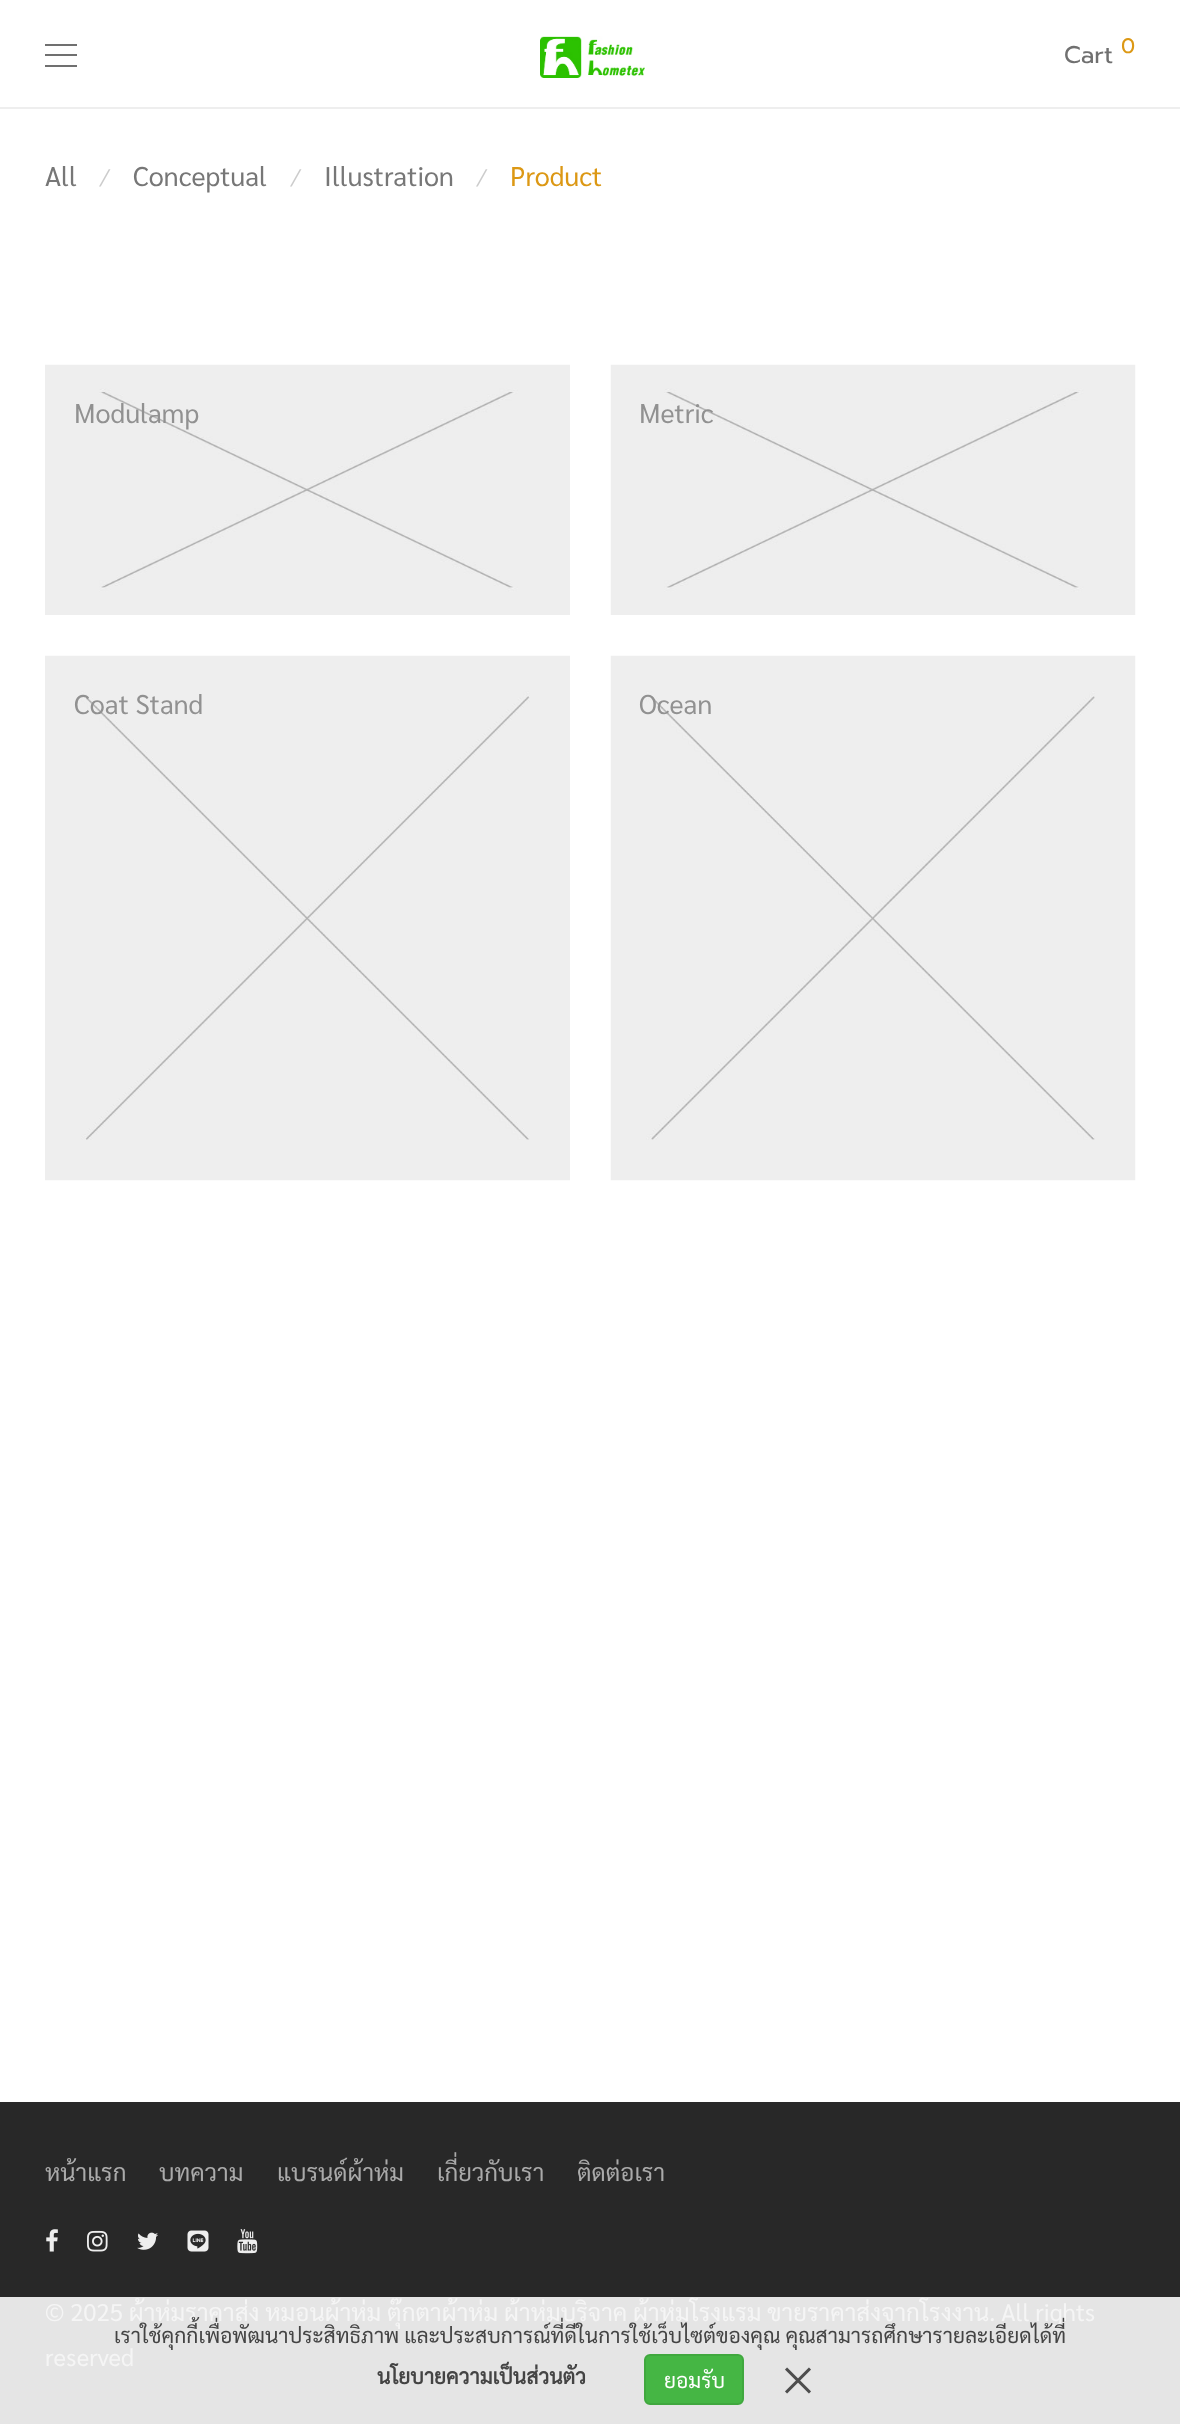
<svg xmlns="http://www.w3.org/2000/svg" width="1180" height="2424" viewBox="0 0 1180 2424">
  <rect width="100%" height="100%" fill="#fff"/>
  <path d="M0 107h1180v2H0z" fill="#eee"/>
  <path d="M45 44h32v2H45z" fill="#707070"/>
  <path d="M45 54h32v2H45z" fill="#707070"/>
  <path d="M45 65h32v2H45z" fill="#707070"/>
  <image x="540" y="36" width="105" height="42" href="img/1.png"/>
  <image x="45" y="364" width="525" height="251" href="img/2.png"/>
  <image x="610" y="364" width="526" height="251" href="img/3.png"/>
  <image x="45" y="655" width="525" height="526" href="img/4.png"/>
  <image x="610" y="655" width="526" height="526" href="img/5.png"/>
  <path d="M0 2102h1180v195H0z" fill="#282828"/>
  <path d="M0 2297h1180v127H0z" fill="#e5e5e5"/>
  <image x="46" y="2229" width="12" height="23" href="img/6.png"/>
  <image x="87" y="2230" width="21" height="22" href="img/7.png"/>
  <image x="137" y="2232" width="21" height="18" href="img/8.png"/>
  <image x="187" y="2230" width="22" height="22" href="img/9.png"/>
  <image x="237" y="2229" width="21" height="25" href="img/10.png"/>
  <rect x="645" y="2355" width="98" height="49" rx="5" fill="#45b644" stroke="#40a83e" stroke-width="2"/>
  <image x="785" y="2367" width="26" height="27" href="img/11.png"/>
  <text x="1064" y="63" font-family="Prompt" font-size="24" fill="#707070">Cart</text>
  <text x="1121" y="53" font-family="Prompt" font-size="21" fill="#dc9814">0</text>
  <text x="45" y="186" font-family="Sarabun" font-size="27" fill="#777">All</text>
  <text x="102" y="186" font-family="Sarabun" font-size="24" fill="#ccc">⁄</text>
  <text x="133" y="186" font-family="Sarabun" font-size="27" fill="#777">Conceptual</text>
  <text x="293" y="186" font-family="Sarabun" font-size="24" fill="#ccc">⁄</text>
  <text x="324" y="186" font-family="Sarabun" font-size="27" fill="#777">Illustration</text>
  <text x="479" y="186" font-family="Sarabun" font-size="24" fill="#ccc">⁄</text>
  <text x="510" y="186" font-family="Sarabun" font-size="27" fill="#dc9814">Product</text>
  <g font-family="Sarabun" font-size="27" fill="#919191">
    <text x="74" y="423">Modulamp</text>
    <text x="639" y="423">Metric</text>
    <text x="74" y="714">Coat Stand</text>
    <text x="639" y="714">Ocean</text>
  </g>
  <g font-family="Sarabun" font-size="24" fill="#aaa">
    <text x="45" y="2181">หน้าแรก</text>
    <text x="159" y="2181">บทความ</text>
    <text x="277" y="2181">แบรนด์ผ้าห่ม</text>
    <text x="437" y="2181">เกี่ยวกับเรา</text>
    <text x="577" y="2181">ติดต่อเรา</text>
  </g>
  <g font-family="Sarabun" font-size="24" fill="#f5f5f5">
    <text x="45" y="2321">© 2025 ผ้าห่มราคาส่ง หมอนผ้าห่ม ตุ๊กตาผ้าห่ม ผ้าห่มบริจาค ผ้าห่มโรงแรม ขายราคาส่งจากโรงงาน. All rights</text>
    <text x="45" y="2366">reserved</text>
  </g>
  <text x="114" y="2343" font-family="Sarabun" font-size="21" fill="#444">เราใช้คุกกี้เพื่อพัฒนาประสิทธิภาพ และประสบการณ์ที่ดีในการใช้เว็บไซต์ของคุณ คุณสามารถศึกษารายละเอียดได้ที่</text>
  <text x="377" y="2384" font-family="Sarabun" font-size="21" font-weight="bold" fill="#444">นโยบายความเป็นส่วนตัว</text>
  <text x="664" y="2388" font-family="Sarabun" font-size="21" fill="#fff">ยอมรับ</text>
</svg>
